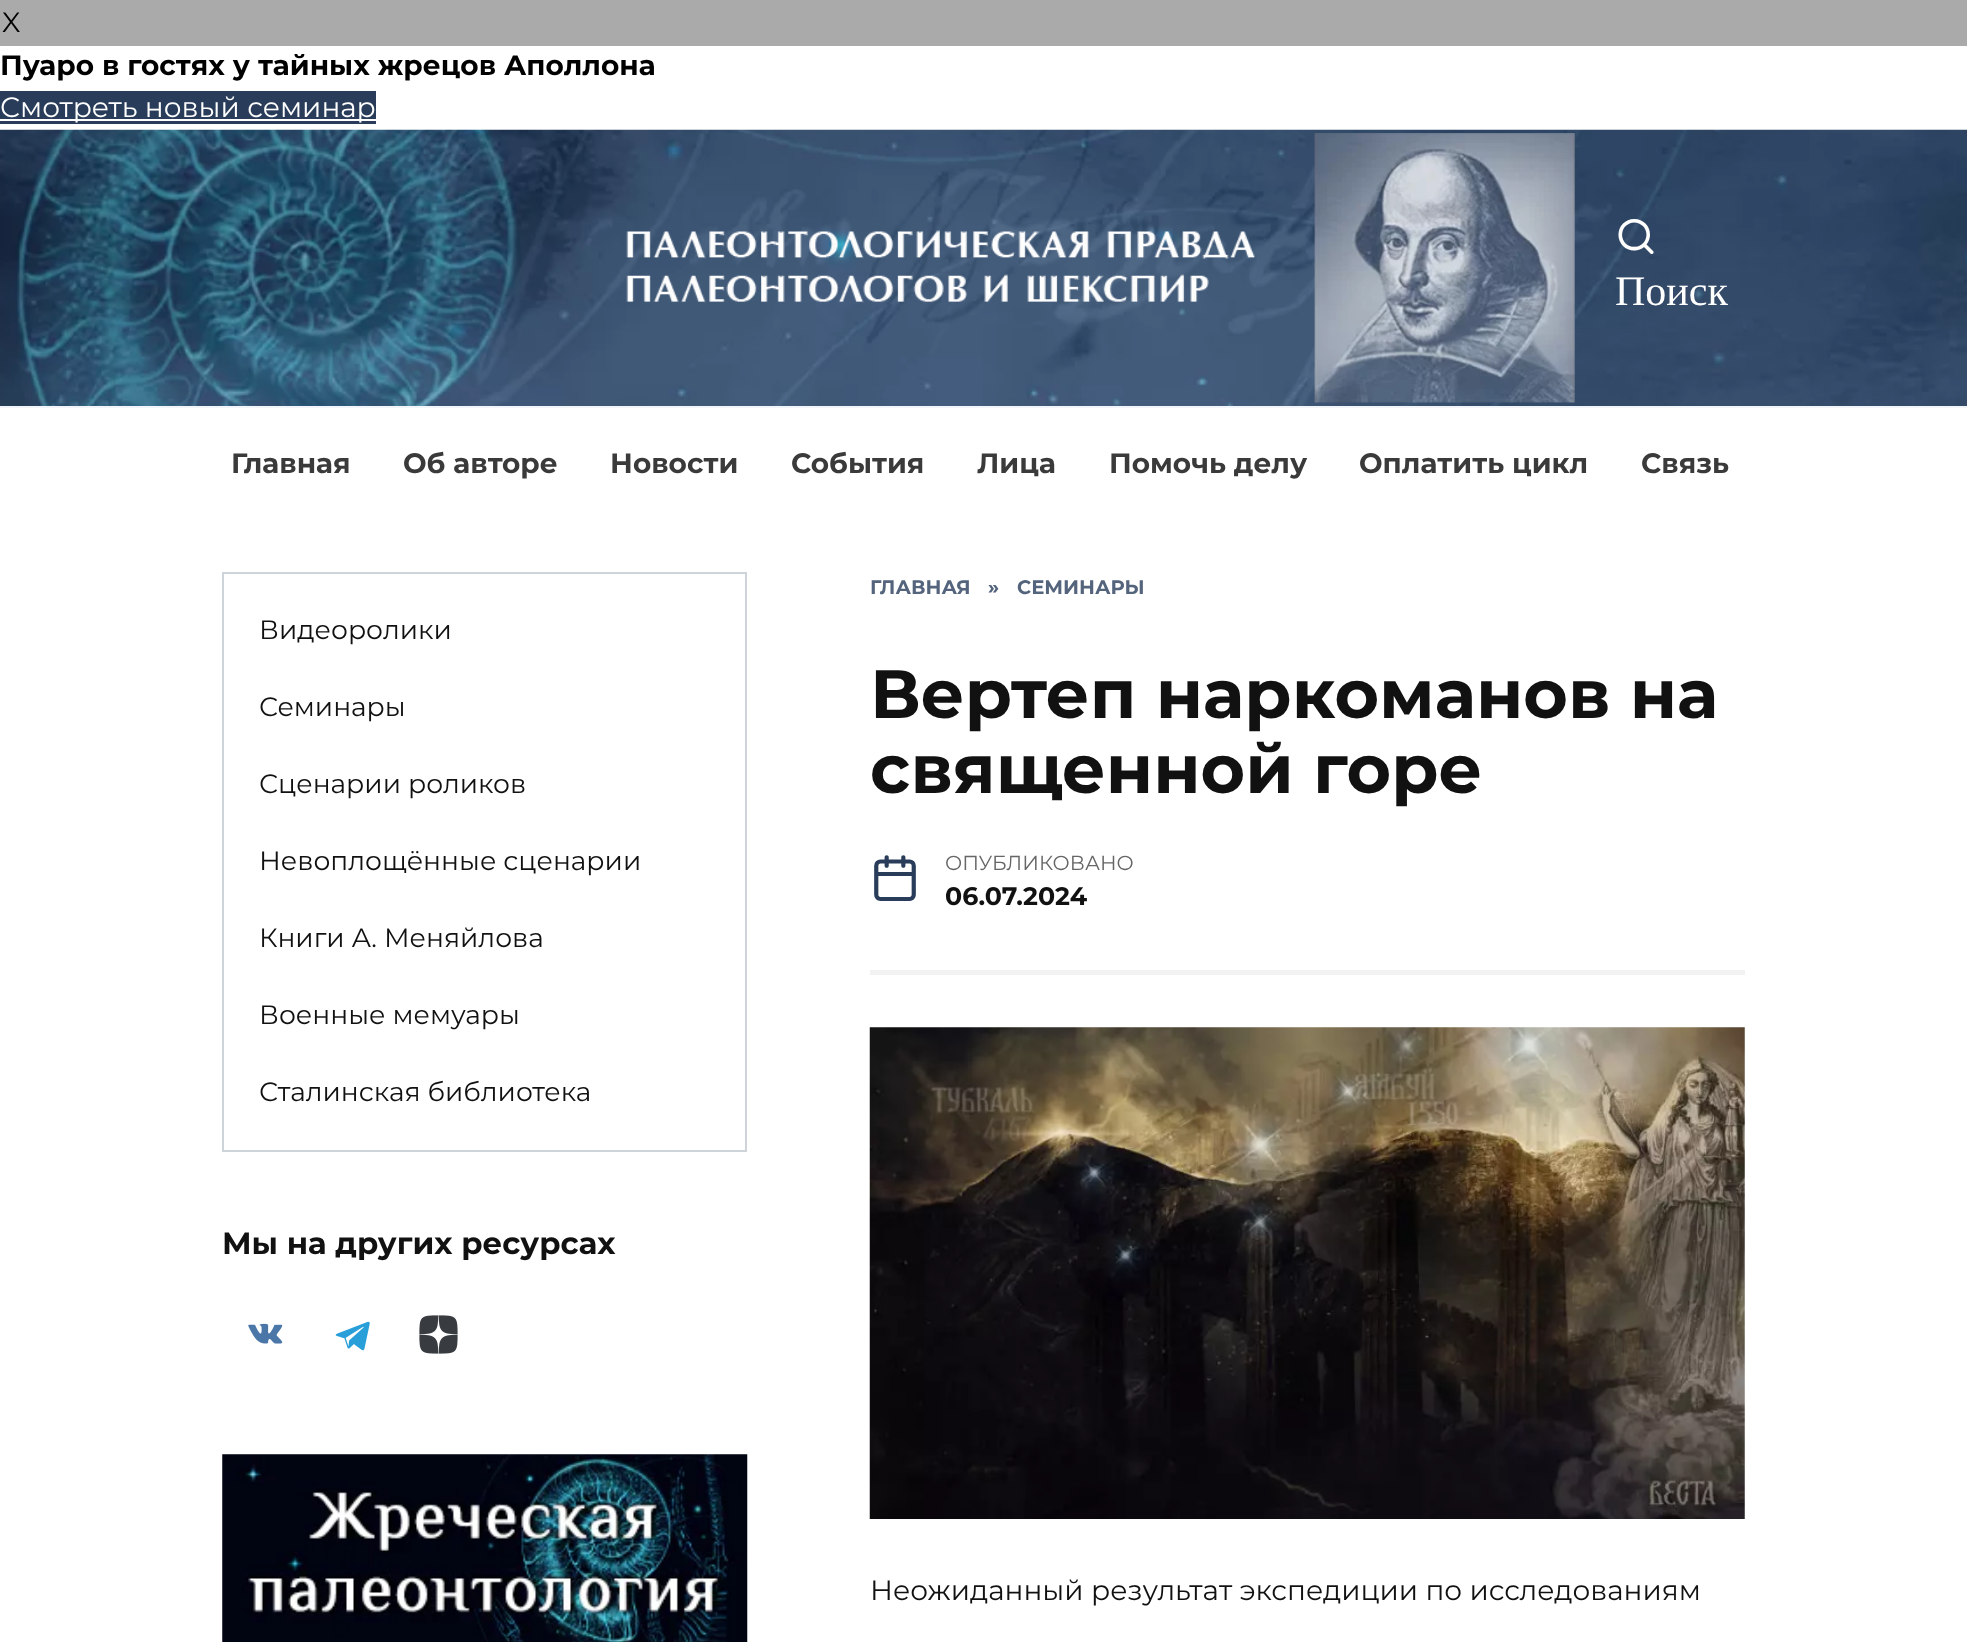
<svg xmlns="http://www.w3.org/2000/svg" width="1967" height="1642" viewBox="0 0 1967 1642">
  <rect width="100%" height="100%" fill="#fff"/>
  <path d="M0 0h1967v46H0z" fill="#aaa"/>
  <path d="M0 91h376v33H0z" fill="#293d5b"/>
  <path d="M0 119h376v2H0z" fill="#fff"/>
  <image x="0" y="129" width="1967" height="277" href="img/1.png"/>
  <path d="M0 406h1967v2H0z" fill="#f2f5f9"/>
  <image x="626" y="133" width="949" height="270" href="img/2.png"/>
  <path d="M223 573h523v578H223z" fill="none" stroke="#ced4da" stroke-width="2"/>
  <image x="248" y="1323" width="35" height="21" href="img/3.png"/>
  <image x="335" y="1321" width="35" height="30" href="img/4.png"/>
  <image x="419" y="1315" width="39" height="39" href="img/5.png"/>
  <image x="222" y="1454" width="526" height="188" href="img/6.png"/>
  <path d="M870 970h875v5H870z" fill="#f2f2f2"/>
  <image x="869" y="1027" width="876" height="492" href="img/7.png"/>
  <text x="2" y="32" font-family="Montserrat" font-size="28" fill="#000">X</text>
  <text x="0" y="75" font-family="Montserrat" font-size="28" font-weight="bold" fill="#000">Пуаро в гостях у тайных жрецов Аполлона</text>
  <text x="0" y="117" font-family="Montserrat" font-size="28" fill="#fff">Смотреть новый семинар</text>
  <text x="1615" y="254" font-family="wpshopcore" font-size="42" fill="#fff">🔍</text>
  <text x="1615" y="305" font-family="Liberation Serif" font-size="42" fill="#fff">Поиск</text>
  <g font-family="Montserrat" font-size="28" font-weight="bold" fill="#3a3a3a">
    <text x="231" y="473">Главная</text>
    <text x="403" y="473">Об авторе</text>
    <text x="610" y="473">Новости</text>
    <text x="791" y="473">События</text>
    <text x="977" y="473">Лица</text>
    <text x="1109" y="473">Помочь делу</text>
    <text x="1359" y="473">Оплатить цикл</text>
    <text x="1641" y="473">Связь</text>
  </g>
  <g font-family="Montserrat" font-size="26.6" fill="#111">
    <text x="259" y="639">Видеоролики</text>
    <text x="259" y="716">Семинары</text>
    <text x="259" y="793">Сценарии роликов</text>
    <text x="259" y="870">Невоплощённые сценарии</text>
    <text x="259" y="947">Книги А. Меняйлова</text>
    <text x="259" y="1024">Военные мемуары</text>
    <text x="259" y="1101">Сталинская библиотека</text>
  </g>
  <text x="222" y="1254" font-family="Montserrat" font-size="30.75" font-weight="bold" fill="#111">Мы на других ресурсах</text>
  <g font-family="Montserrat" font-size="19.5" font-weight="bold" fill="#54647c">
    <text x="870" y="594">ГЛАВНАЯ</text>
    <text x="988" y="594">»</text>
    <text x="1017" y="594">СЕМИНАРЫ</text>
  </g>
  <g font-family="Montserrat" font-size="68.25" font-weight="bold" fill="#111">
    <text x="870" y="718">Вертеп наркоманов на</text>
    <text x="870" y="793">священной горе</text>
  </g>
  <text x="870" y="899" font-family="wpshopcore" font-size="50" fill="#293d5b">📅</text>
  <text x="945" y="870" font-family="Montserrat" font-size="20.25" fill="#666">ОПУБЛИКОВАНО</text>
  <text x="945" y="905" font-family="Montserrat" font-size="25.25" font-weight="bold" fill="#111">06.07.2024</text>
  <text x="870" y="1600" font-family="Montserrat" font-size="28" fill="#111">Неожиданный результат экспедиции по исследованиям</text>
</svg>
